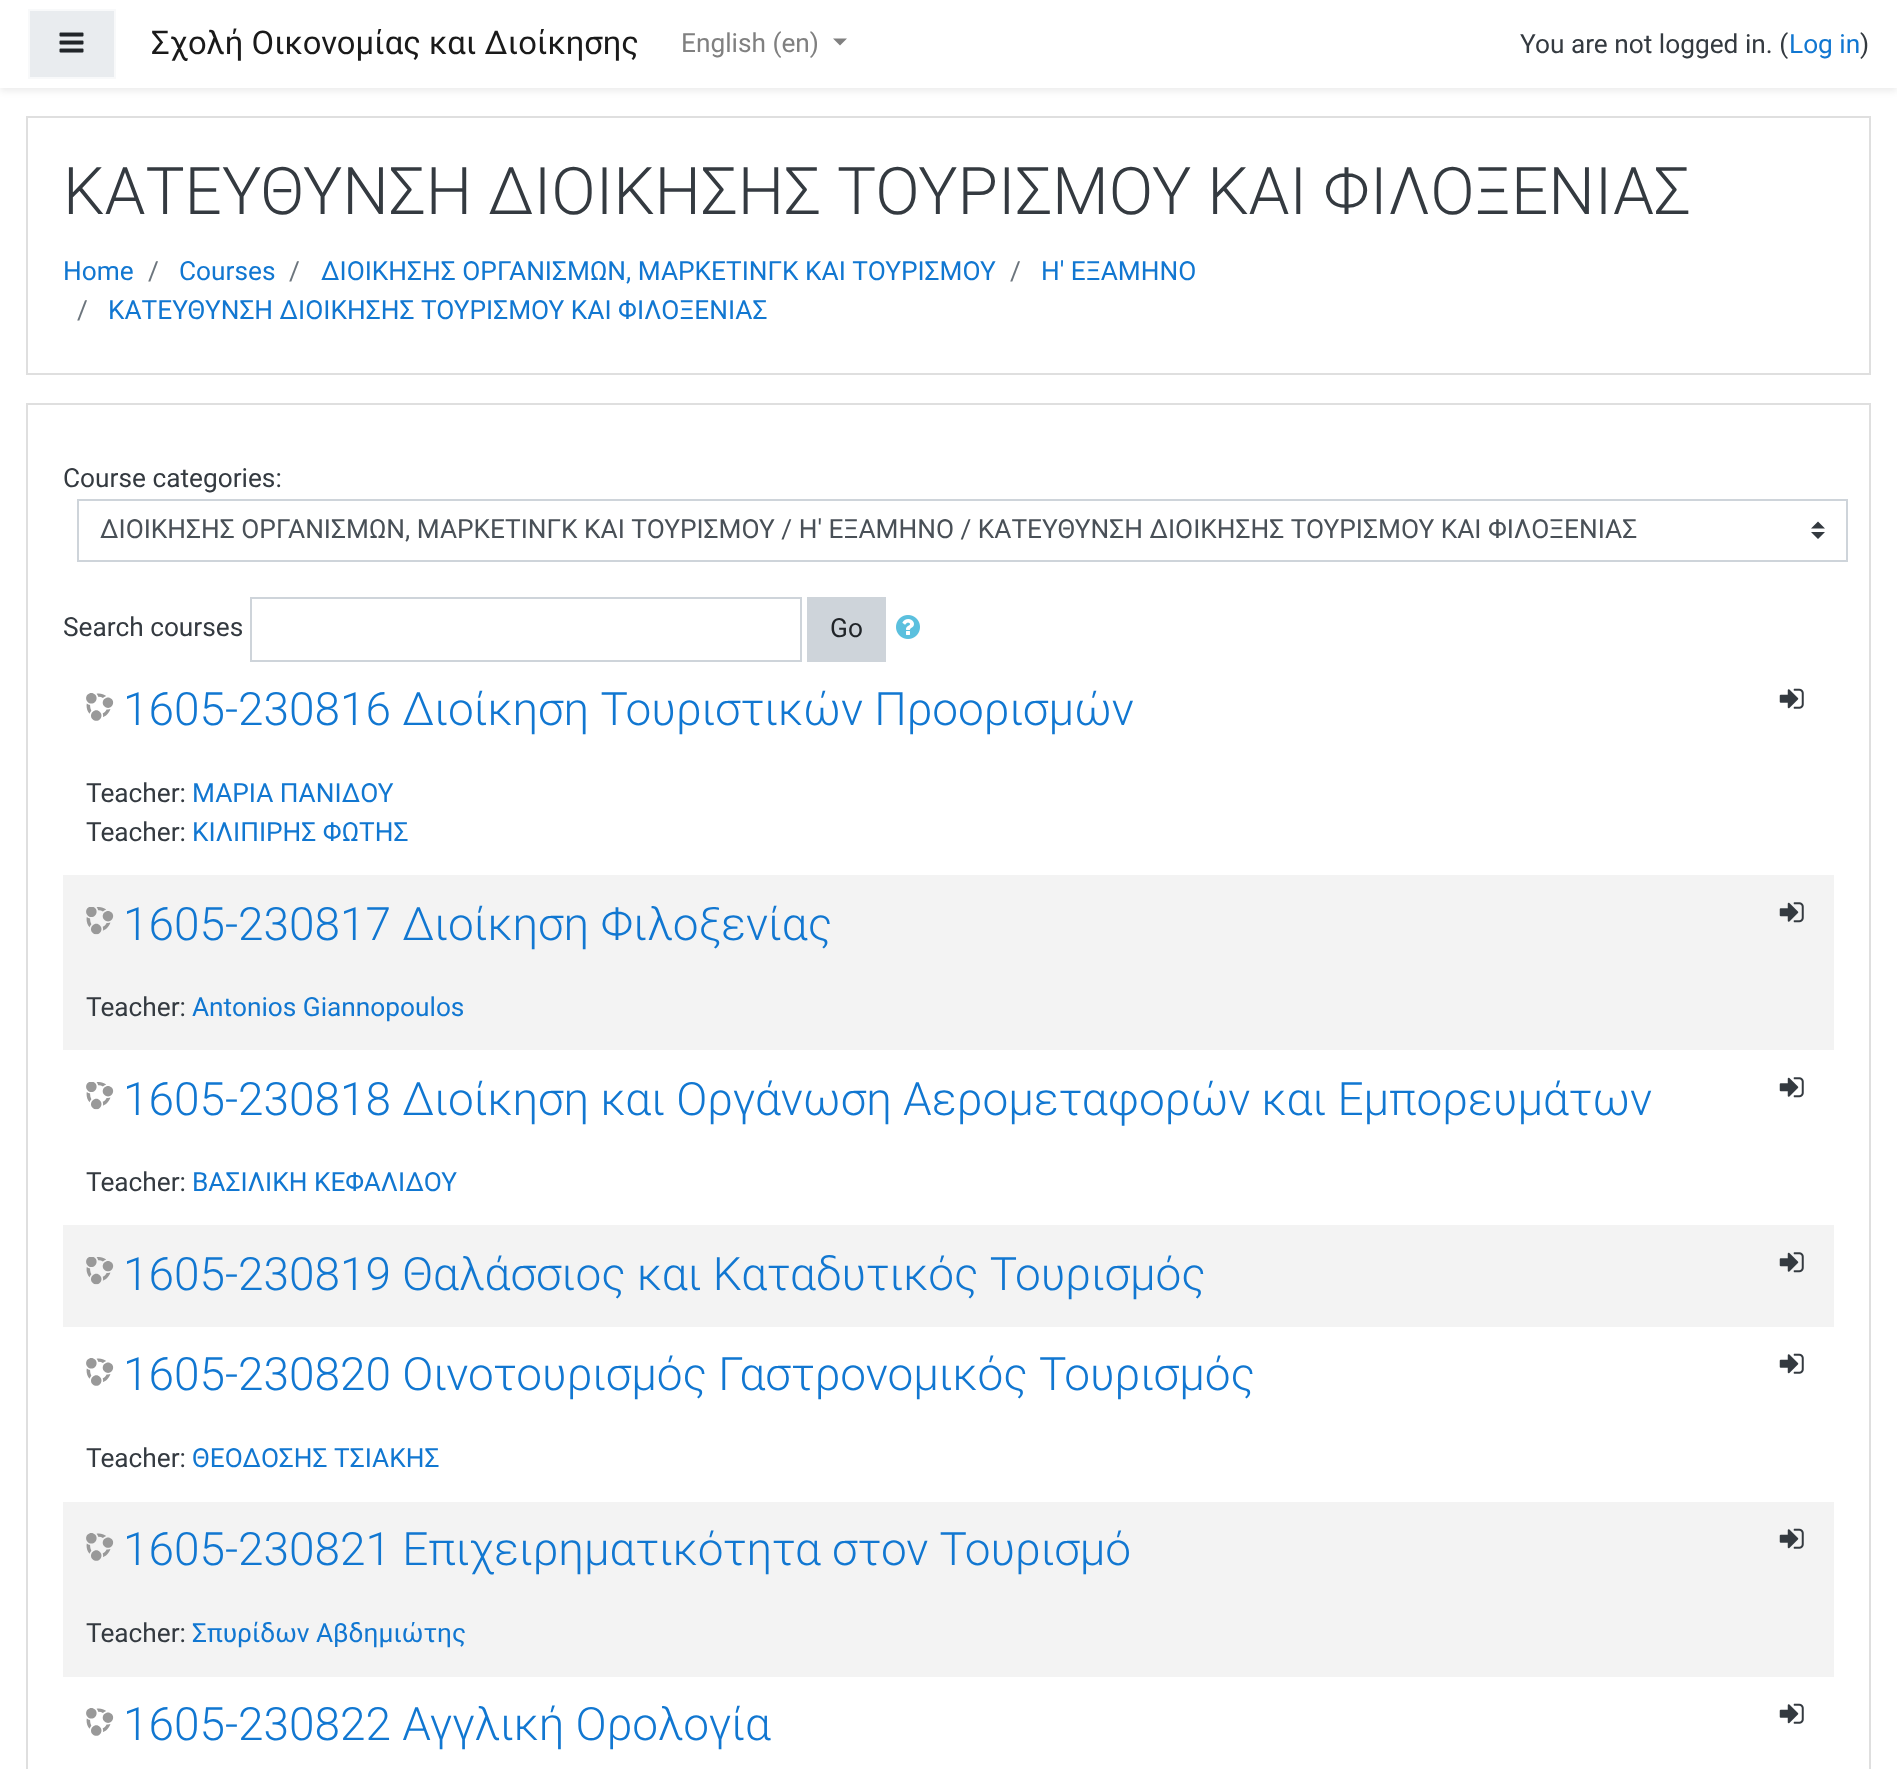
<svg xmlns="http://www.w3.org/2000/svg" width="1897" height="1769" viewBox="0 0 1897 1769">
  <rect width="100%" height="100%" fill="#fff"/>
  <path d="M0 4h1897v87H0z" fill="#00000014" filter="blur(3.5px)"/>
  <path d="M0 0h1897v88H0z" fill="#fff"/>
  <path d="M29 10h86v68H29z" fill="#e9ecef" stroke="#f8f9fa" stroke-width="2"/>
  <image x="59" y="32" width="25" height="21" href="img/1.png"/>
  <path d="M833 38.5H847L840 45.5Z" fill="#808080"/>
  <path d="M27 117h1843v257H27z" fill="none" stroke="#dfdfdf" stroke-width="2"/>
  <path d="M27 404h1843v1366H27z" fill="none" stroke="#dfdfdf" stroke-width="2"/>
  <path d="M1818 521.5L1811 528.5H1825ZM1818 539L1811 532H1825Z" fill="#343a40"/>
  <path d="M78 500h1769v61H78z" fill="none" stroke="#ced4da" stroke-width="2"/>
  <path d="M251 598h550v63H251z" fill="none" stroke="#ced4da" stroke-width="2"/>
  <path d="M807 597h79v65H807z" fill="#ced4da"/>
  <image x="896" y="615" width="24" height="24" href="img/2.png"/>
  <image x="86" y="693" width="28" height="28" href="img/3.png"/>
  <image x="1779" y="688" width="25" height="21" href="img/4.png"/>
  <path d="M63 875h1771v175H63z" fill="#f3f3f3"/>
  <image x="86" y="907" width="28" height="28" href="img/5.png"/>
  <image x="1779" y="902" width="25" height="21" href="img/6.png"/>
  <image x="86" y="1082" width="28" height="28" href="img/7.png"/>
  <image x="1779" y="1077" width="25" height="21" href="img/8.png"/>
  <path d="M63 1225h1771v102H63z" fill="#f3f3f3"/>
  <image x="86" y="1257" width="28" height="28" href="img/9.png"/>
  <image x="1779" y="1252" width="25" height="21" href="img/6.png"/>
  <image x="86" y="1358" width="28" height="28" href="img/3.png"/>
  <image x="1779" y="1353" width="25" height="21" href="img/4.png"/>
  <path d="M63 1502h1771v175H63z" fill="#f3f3f3"/>
  <image x="86" y="1533" width="28" height="28" href="img/10.png"/>
  <image x="1779" y="1528" width="25" height="21" href="img/11.png"/>
  <image x="86" y="1708" width="28" height="28" href="img/3.png"/>
  <image x="1779" y="1703" width="25" height="21" href="img/4.png"/>
  <text x="151" y="54" font-family="Roboto" font-size="32.75" fill="#1a1a1a">Σχολή Οικονομίας και Διοίκησης</text>
  <text x="681" y="52" font-family="Roboto" font-size="26.25" fill="#808080">English (en)</text>
  <text x="1520" y="53" font-family="Roboto" font-size="26.25" fill="#343a40">You are not logged in. (</text>
  <text x="1789" y="53" font-family="Roboto" font-size="26.25" fill="#1177d1">Log in</text>
  <text x="1860" y="53" font-family="Roboto" font-size="26.25" fill="#343a40">)</text>
  <text x="63" y="214" font-family="Roboto" font-size="65.6" font-weight="300" fill="#343a40">ΚΑΤΕΥΘΥΝΣΗ ΔΙΟΙΚΗΣΗΣ ΤΟΥΡΙΣΜΟΥ ΚΑΙ ΦΙΛΟΞΕΝΙΑΣ</text>
  <text x="63" y="280" font-family="Roboto" font-size="26.25" fill="#1177d1">Home</text>
  <text x="148" y="280" font-family="Roboto" font-size="26.25" fill="#6c757d">/</text>
  <text x="179" y="280" font-family="Roboto" font-size="26.25" fill="#1177d1">Courses</text>
  <text x="289" y="280" font-family="Roboto" font-size="26.25" fill="#6c757d">/</text>
  <text x="321" y="280" font-family="Roboto" font-size="26.25" fill="#1177d1">ΔΙΟΙΚΗΣΗΣ ΟΡΓΑΝΙΣΜΩΝ, ΜΑΡΚΕΤΙΝΓΚ ΚΑΙ ΤΟΥΡΙΣΜΟΥ</text>
  <text x="1010" y="280" font-family="Roboto" font-size="26.25" fill="#6c757d">/</text>
  <text x="1041" y="280" font-family="Roboto" font-size="26.25" fill="#1177d1">Η' ΕΞΑΜΗΝΟ</text>
  <text x="77" y="319" font-family="Roboto" font-size="26.25" fill="#6c757d">/</text>
  <text x="108" y="319" font-family="Roboto" font-size="26.25" fill="#1177d1">ΚΑΤΕΥΘΥΝΣΗ ΔΙΟΙΚΗΣΗΣ ΤΟΥΡΙΣΜΟΥ ΚΑΙ ΦΙΛΟΞΕΝΙΑΣ</text>
  <text x="63" y="487" font-family="Roboto" font-size="26.25" fill="#343a40">Course categories:</text>
  <text x="100" y="538" font-family="Roboto" font-size="26.25" fill="#495057">ΔΙΟΙΚΗΣΗΣ ΟΡΓΑΝΙΣΜΩΝ, ΜΑΡΚΕΤΙΝΓΚ ΚΑΙ ΤΟΥΡΙΣΜΟΥ / Η' ΕΞΑΜΗΝΟ / ΚΑΤΕΥΘΥΝΣΗ ΔΙΟΙΚΗΣΗΣ ΤΟΥΡΙΣΜΟΥ ΚΑΙ ΦΙΛΟΞΕΝΙΑΣ</text>
  <text x="63" y="636" font-family="Roboto" font-size="26.25" fill="#343a40">Search courses</text>
  <text x="830" y="637" font-family="Roboto" font-size="26.25" fill="#212529">Go</text>
  <text x="123" y="725" font-family="Roboto" font-size="45.95" font-weight="300" fill="#1177d1">1605-230816 Διοίκηση Τουριστικών Προορισμών</text>
  <text x="86" y="802" font-family="Roboto" font-size="26.25" fill="#343a40">Teacher:</text>
  <text x="192" y="802" font-family="Roboto" font-size="26.25" fill="#1177d1">ΜΑΡΙΑ ΠΑΝΙΔΟΥ</text>
  <text x="86" y="841" font-family="Roboto" font-size="26.25" fill="#343a40">Teacher:</text>
  <text x="192" y="841" font-family="Roboto" font-size="26.25" fill="#1177d1">ΚΙΛΙΠΙΡΗΣ ΦΩΤΗΣ</text>
  <text x="123" y="940" font-family="Roboto" font-size="45.95" font-weight="300" fill="#1177d1">1605-230817 Διοίκηση Φιλοξενίας</text>
  <text x="86" y="1016" font-family="Roboto" font-size="26.25" fill="#343a40">Teacher:</text>
  <text x="192" y="1016" font-family="Roboto" font-size="26.25" fill="#1177d1">Antonios Giannopoulos</text>
  <text x="123" y="1115" font-family="Roboto" font-size="45.95" font-weight="300" fill="#1177d1">1605-230818 Διοίκηση και Οργάνωση Αερομεταφορών και Εμπορευμάτων</text>
  <text x="86" y="1191" font-family="Roboto" font-size="26.25" fill="#343a40">Teacher:</text>
  <text x="192" y="1191" font-family="Roboto" font-size="26.25" fill="#1177d1">ΒΑΣΙΛΙΚΗ ΚΕΦΑΛΙΔΟΥ</text>
  <g font-family="Roboto" font-size="45.95" font-weight="300" fill="#1177d1">
    <text x="123" y="1290">1605-230819 Θαλάσσιος και Καταδυτικός Τουρισμός</text>
    <text x="123" y="1390">1605-230820 Οινοτουρισμός Γαστρονομικός Τουρισμός</text>
  </g>
  <text x="86" y="1467" font-family="Roboto" font-size="26.25" fill="#343a40">Teacher:</text>
  <text x="192" y="1467" font-family="Roboto" font-size="26.25" fill="#1177d1">ΘΕΟΔΟΣΗΣ ΤΣΙΑΚΗΣ</text>
  <text x="123" y="1565" font-family="Roboto" font-size="45.95" font-weight="300" fill="#1177d1">1605-230821 Επιχειρηματικότητα στον Τουρισμό</text>
  <text x="86" y="1642" font-family="Roboto" font-size="26.25" fill="#343a40">Teacher:</text>
  <text x="192" y="1642" font-family="Roboto" font-size="26.25" fill="#1177d1">Σπυρίδων Αβδημιώτης</text>
  <text x="123" y="1740" font-family="Roboto" font-size="45.95" font-weight="300" fill="#1177d1">1605-230822 Αγγλική Ορολογία</text>
</svg>
